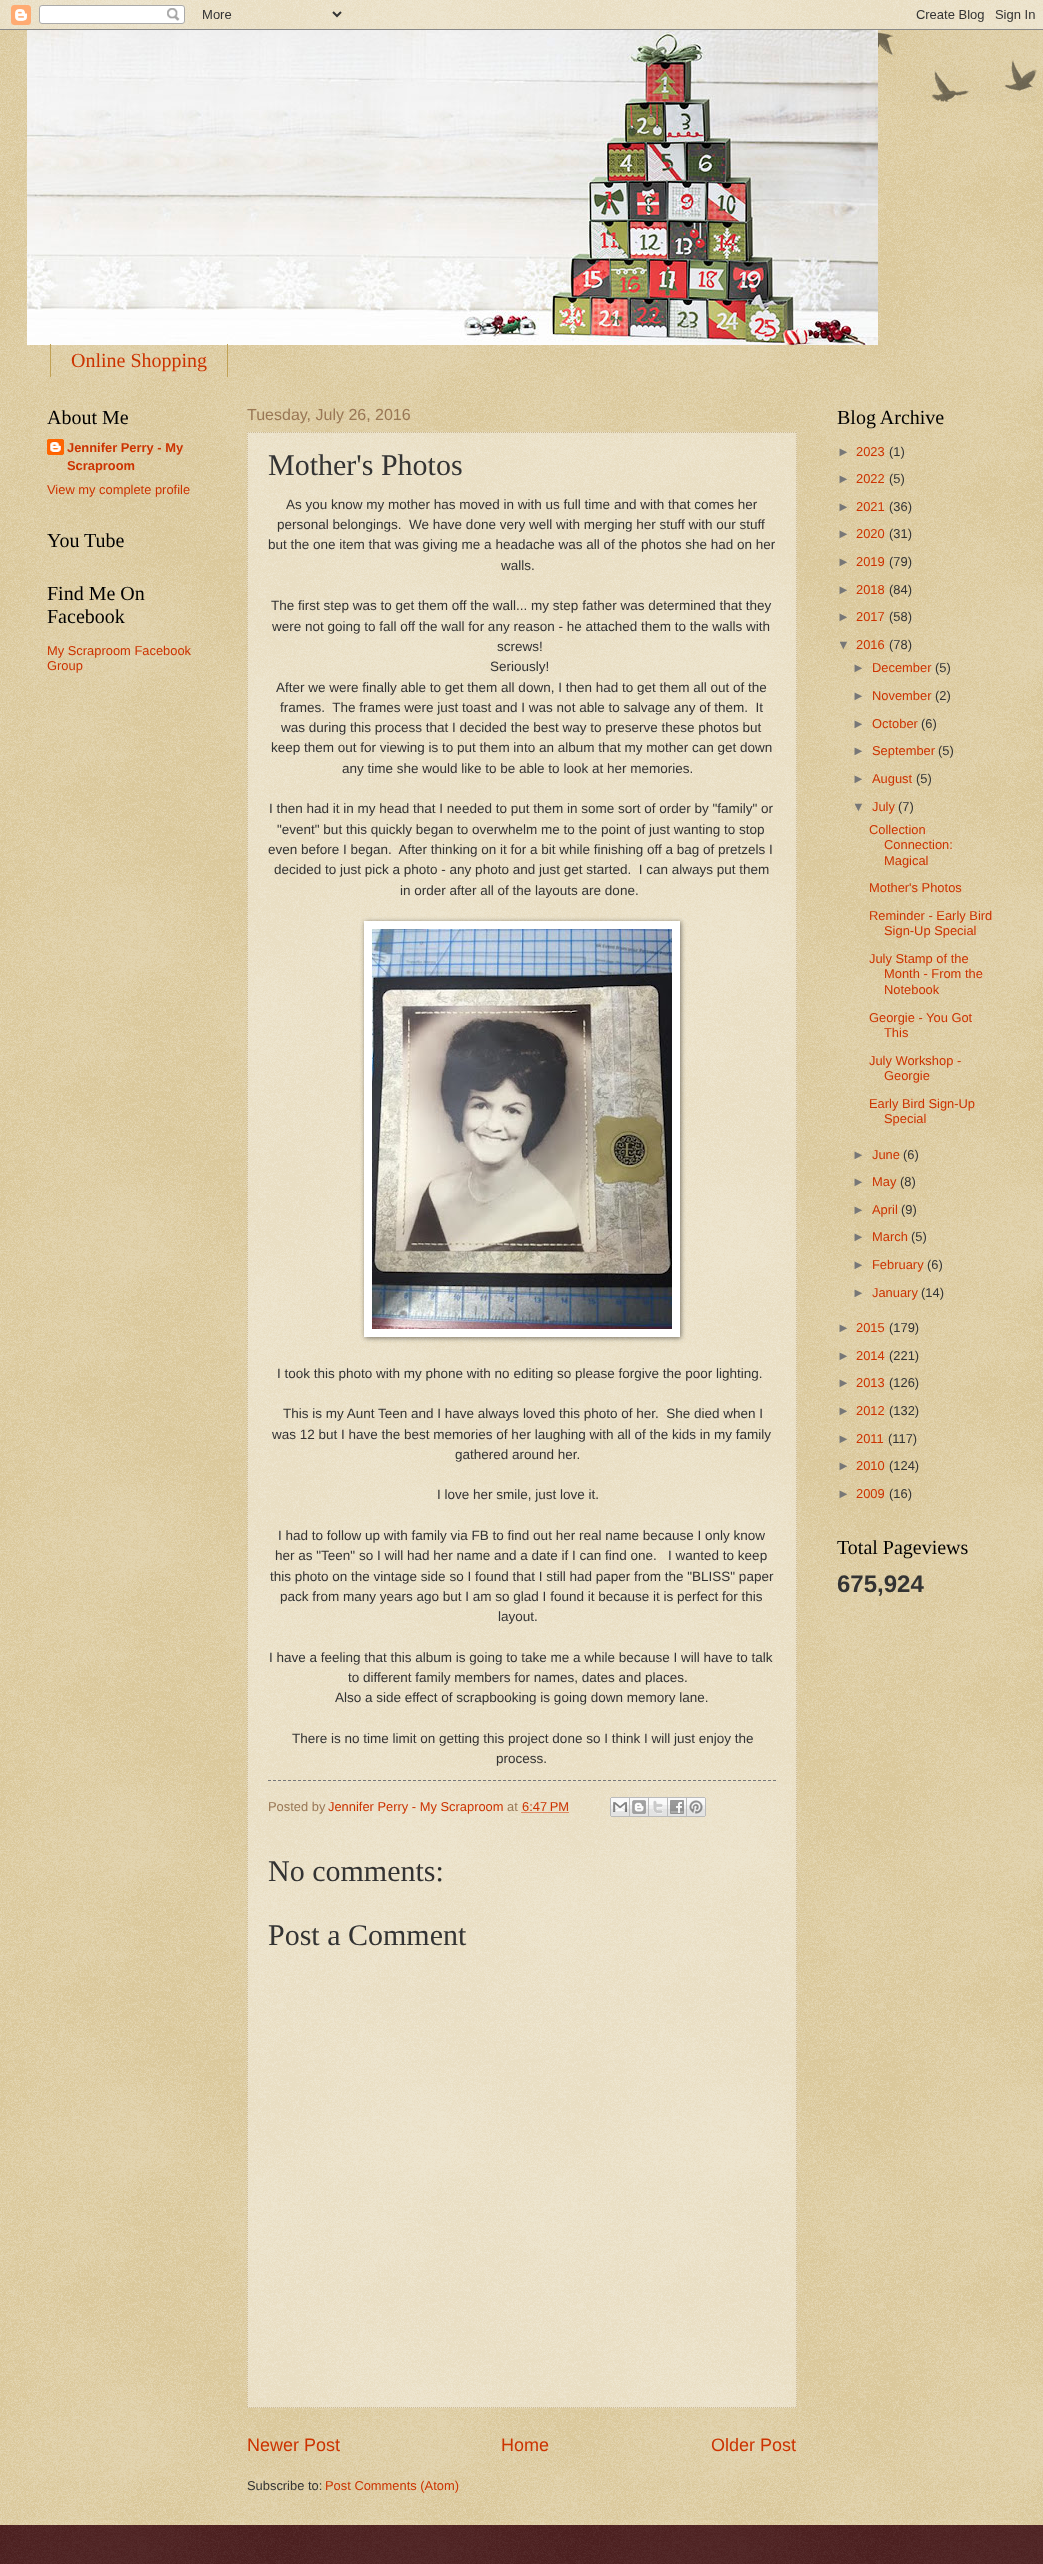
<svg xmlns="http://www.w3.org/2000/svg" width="1043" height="2564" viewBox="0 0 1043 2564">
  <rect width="100%" height="100%" fill="#c0a154"/>
  <image x="0" y="0" width="1043" height="2525" href="img/1.png"/>
  <image x="0" y="0" width="1043" height="30" href="img/2.png"/>
  <image x="878" y="32" width="159" height="70" href="img/3.png"/>
  <image x="27" y="30" width="851" height="315" href="img/4.png"/>
  <path d="M227 344h1v33H227z" fill="#c0a154"/>
  <path d="M50 344h1v33H50z" fill="#c0a154"/>
  <image x="47" y="439" width="17" height="16" href="img/5.png"/>
  <path d="M247 432h550v1976H247z" fill="#ffffff66"/>
  <path d="M247 432.5H797" fill="none" stroke="#cb9" stroke-dasharray="1 1"/>
  <path d="M796.5 432V2408" fill="none" stroke="#cb9" stroke-dasharray="1 1"/>
  <path d="M247 2407.5H797" fill="none" stroke="#cb9" stroke-dasharray="1 1"/>
  <path d="M247.5 432V2408" fill="none" stroke="#cb9" stroke-dasharray="1 1"/>
  <path d="M365 922h316v416H365z" fill="#00000080" filter="blur(2.5px)"/>
  <path d="M364 921h316v416H364z" fill="#fff"/>
  <image x="372" y="929" width="300" height="400" href="img/6.png"/>
  <path d="M268 1780.5H776" fill="none" stroke="#777" stroke-dasharray="3 2"/>
  <path d="M521.5 1812.5H568.5" fill="none" stroke="#c30" stroke-dasharray="1 1"/>
  <image x="610" y="1797" width="20" height="20" href="img/7.png"/>
  <image x="630" y="1797" width="19" height="20" href="img/8.png"/>
  <image x="649" y="1797" width="19" height="20" href="img/9.png"/>
  <image x="668" y="1797" width="19" height="20" href="img/10.png"/>
  <image x="687" y="1797" width="19" height="20" href="img/11.png"/>
  <path d="M0 2525h1043v39H0z" fill="#300"/>
  <image x="0" y="2525" width="1043" height="39" href="img/12.png"/>
  <text x="71" y="367" font-family="Liberation Serif" font-size="20" fill="#c30">Online Shopping</text>
  <text x="47" y="424" font-family="Liberation Serif" font-size="20" fill="#000">About Me</text>
  <g font-family="Liberation Sans" font-size="12.9" font-weight="bold" fill="#c30">
    <text x="67" y="452">Jennifer Perry - My</text>
    <text x="67" y="470">Scraproom</text>
  </g>
  <text x="47" y="494" font-family="Liberation Sans" font-size="12.9" fill="#c30">View my complete profile</text>
  <g font-family="Liberation Serif" font-size="20" fill="#000">
    <text x="47" y="547">You Tube</text>
    <text x="47" y="600">Find Me On</text>
    <text x="47" y="623">Facebook</text>
  </g>
  <g font-family="Liberation Sans" font-size="12.9" fill="#c30">
    <text x="47" y="655">My Scraproom Facebook</text>
    <text x="47" y="670">Group</text>
  </g>
  <text x="247" y="420" font-family="Liberation Sans" font-size="16" fill="#975">Tuesday, July 26, 2016</text>
  <text x="268" y="475" font-family="Liberation Serif" font-size="30" fill="#333">Mother's Photos</text>
  <g font-family="Liberation Sans" font-size="13.5" fill="#333">
    <text x="286" y="509">As you know my mother has moved in with us full time and with that comes her</text>
    <text x="277" y="529" xml:space="preserve">personal belongings.  We have done very well with merging her stuff with our stuff</text>
    <text x="268" y="549">but the one item that was giving me a headache was all of the photos she had on her</text>
    <text x="501" y="570">walls.</text>
    <text x="271" y="610">The first step was to get them off the wall... my step father was determined that they</text>
    <text x="272" y="631">were not going to fall off the wall for any reason - he attached them to the walls with</text>
    <text x="497" y="651">screws!</text>
    <text x="490" y="671">Seriously!</text>
    <text x="276" y="692">After we were finally able to get them all down, I then had to get them all out of the</text>
    <text x="280" y="712" xml:space="preserve">frames.  The frames were just toast and I was not able to salvage any of them.  It</text>
    <text x="281" y="732">was during this process that I decided the best way to preserve these photos but</text>
    <text x="271" y="752">keep them out for viewing is to put them into an album that my mother can get down</text>
    <text x="342" y="773">any time she would like to be able to look at her memories.</text>
    <text x="269" y="813">I then had it in my head that I needed to put them in some sort of order by "family" or</text>
    <text x="277" y="834">"event" but this quickly began to overwhelm me to the point of just wanting to stop</text>
    <text x="268" y="854" xml:space="preserve">even before I began.  After thinking on it for a bit while finishing off a bag of pretzels I</text>
    <text x="274" y="874" xml:space="preserve">decided to just pick a photo - any photo and just get started.  I can always put them</text>
    <text x="400" y="895">in order after all of the layouts are done.</text>
    <text x="277" y="1378">I took this photo with my phone with no editing so please forgive the poor lighting.</text>
    <text x="283" y="1418" xml:space="preserve">This is my Aunt Teen and I have always loved this photo of her.  She died when I</text>
    <text x="272" y="1439">was 12 but I have the best memories of her laughing with all of the kids in my family</text>
    <text x="455" y="1459">gathered around her.</text>
    <text x="437" y="1499">I love her smile, just love it.</text>
    <text x="278" y="1540">I had to follow up with family via FB to find out her real name because I only know</text>
    <text x="275" y="1560" xml:space="preserve">her as "Teen" so I will had her name and a date if I can find one.   I wanted to keep</text>
    <text x="270" y="1581">this photo on the vintage side so I found that I still had paper from the "BLISS" paper</text>
    <text x="280" y="1601">pack from many years ago but I am so glad I found it because it is perfect for this</text>
    <text x="498" y="1621">layout.</text>
    <text x="269" y="1662">I have a feeling that this album is going to take me a while because I will have to talk</text>
    <text x="348" y="1682">to different family members for names, dates and places.</text>
    <text x="335" y="1702">Also a side effect of scrapbooking is going down memory lane.</text>
    <text x="292" y="1743">There is no time limit on getting this project done so I think I will just enjoy the</text>
    <text x="496" y="1763">process.</text>
  </g>
  <text x="268" y="1811" font-family="Liberation Sans" font-size="12.9" fill="#975">Posted by</text>
  <text x="328" y="1811" font-family="Liberation Sans" font-size="12.9" fill="#c30">Jennifer Perry - My Scraproom</text>
  <text x="507" y="1811" font-family="Liberation Sans" font-size="12.9" fill="#975">at</text>
  <text x="522" y="1811" font-family="Liberation Sans" font-size="12.9" fill="#c30">6:47 PM</text>
  <g font-family="Liberation Serif" font-size="30" fill="#333">
    <text x="268" y="1881">No comments:</text>
    <text x="268" y="1945">Post a Comment</text>
  </g>
  <g font-family="Liberation Sans" font-size="18" fill="#c30">
    <text x="247" y="2451">Newer Post</text>
    <text x="501" y="2451">Home</text>
    <text x="711" y="2451">Older Post</text>
  </g>
  <text x="247" y="2490" font-family="Liberation Sans" font-size="12.9" fill="#333">Subscribe to:</text>
  <text x="325" y="2490" font-family="Liberation Sans" font-size="12.9" fill="#c30">Post Comments (Atom)</text>
  <text x="837" y="424" font-family="Liberation Serif" font-size="20" fill="#000">Blog Archive</text>
  <text x="837" y="456" font-family="Liberation Sans" font-size="12.9" fill="#777">►</text>
  <text x="856" y="456" font-family="Liberation Sans" font-size="12.9" fill="#c30">2023</text>
  <text x="889" y="456" font-family="Liberation Sans" font-size="12.9" fill="#333">(1)</text>
  <text x="837" y="483" font-family="Liberation Sans" font-size="12.9" fill="#777">►</text>
  <text x="856" y="483" font-family="Liberation Sans" font-size="12.9" fill="#c30">2022</text>
  <text x="889" y="483" font-family="Liberation Sans" font-size="12.9" fill="#333">(5)</text>
  <text x="837" y="511" font-family="Liberation Sans" font-size="12.9" fill="#777">►</text>
  <text x="856" y="511" font-family="Liberation Sans" font-size="12.9" fill="#c30">2021</text>
  <text x="889" y="511" font-family="Liberation Sans" font-size="12.9" fill="#333">(36)</text>
  <text x="837" y="538" font-family="Liberation Sans" font-size="12.9" fill="#777">►</text>
  <text x="856" y="538" font-family="Liberation Sans" font-size="12.9" fill="#c30">2020</text>
  <text x="889" y="538" font-family="Liberation Sans" font-size="12.9" fill="#333">(31)</text>
  <text x="837" y="566" font-family="Liberation Sans" font-size="12.9" fill="#777">►</text>
  <text x="856" y="566" font-family="Liberation Sans" font-size="12.9" fill="#c30">2019</text>
  <text x="889" y="566" font-family="Liberation Sans" font-size="12.9" fill="#333">(79)</text>
  <text x="837" y="594" font-family="Liberation Sans" font-size="12.9" fill="#777">►</text>
  <text x="856" y="594" font-family="Liberation Sans" font-size="12.9" fill="#c30">2018</text>
  <text x="889" y="594" font-family="Liberation Sans" font-size="12.9" fill="#333">(84)</text>
  <text x="837" y="621" font-family="Liberation Sans" font-size="12.9" fill="#777">►</text>
  <text x="856" y="621" font-family="Liberation Sans" font-size="12.9" fill="#c30">2017</text>
  <text x="889" y="621" font-family="Liberation Sans" font-size="12.9" fill="#333">(58)</text>
  <text x="837" y="649" font-family="Liberation Sans" font-size="12.9" fill="#777">▼</text>
  <text x="856" y="649" font-family="Liberation Sans" font-size="12.9" fill="#c30">2016</text>
  <text x="889" y="649" font-family="Liberation Sans" font-size="12.9" fill="#333">(78)</text>
  <text x="852" y="672" font-family="Liberation Sans" font-size="12.9" fill="#777">►</text>
  <text x="872" y="672" font-family="Liberation Sans" font-size="12.9" fill="#c30">December</text>
  <text x="935" y="672" font-family="Liberation Sans" font-size="12.9" fill="#333">(5)</text>
  <text x="852" y="700" font-family="Liberation Sans" font-size="12.9" fill="#777">►</text>
  <text x="872" y="700" font-family="Liberation Sans" font-size="12.9" fill="#c30">November</text>
  <text x="935" y="700" font-family="Liberation Sans" font-size="12.9" fill="#333">(2)</text>
  <text x="852" y="728" font-family="Liberation Sans" font-size="12.9" fill="#777">►</text>
  <text x="872" y="728" font-family="Liberation Sans" font-size="12.9" fill="#c30">October</text>
  <text x="921" y="728" font-family="Liberation Sans" font-size="12.9" fill="#333">(6)</text>
  <text x="852" y="755" font-family="Liberation Sans" font-size="12.9" fill="#777">►</text>
  <text x="872" y="755" font-family="Liberation Sans" font-size="12.9" fill="#c30">September</text>
  <text x="938" y="755" font-family="Liberation Sans" font-size="12.9" fill="#333">(5)</text>
  <text x="852" y="783" font-family="Liberation Sans" font-size="12.9" fill="#777">►</text>
  <text x="872" y="783" font-family="Liberation Sans" font-size="12.9" fill="#c30">August</text>
  <text x="916" y="783" font-family="Liberation Sans" font-size="12.9" fill="#333">(5)</text>
  <text x="852" y="811" font-family="Liberation Sans" font-size="12.9" fill="#777">▼</text>
  <text x="872" y="811" font-family="Liberation Sans" font-size="12.9" fill="#c30">July</text>
  <text x="898" y="811" font-family="Liberation Sans" font-size="12.9" fill="#333">(7)</text>
  <g font-family="Liberation Sans" font-size="12.9" fill="#c30">
    <text x="869" y="834">Collection</text>
    <text x="884" y="849">Connection:</text>
    <text x="884" y="865">Magical</text>
    <text x="869" y="892">Mother's Photos</text>
    <text x="869" y="920">Reminder - Early Bird</text>
    <text x="884" y="935">Sign-Up Special</text>
    <text x="869" y="963">July Stamp of the</text>
    <text x="884" y="978">Month - From the</text>
    <text x="884" y="994">Notebook</text>
    <text x="869" y="1022">Georgie - You Got</text>
    <text x="884" y="1037">This</text>
    <text x="869" y="1065">July Workshop -</text>
    <text x="884" y="1080">Georgie</text>
    <text x="869" y="1108">Early Bird Sign-Up</text>
    <text x="884" y="1123">Special</text>
  </g>
  <text x="852" y="1159" font-family="Liberation Sans" font-size="12.9" fill="#777">►</text>
  <text x="872" y="1159" font-family="Liberation Sans" font-size="12.9" fill="#c30">June</text>
  <text x="903" y="1159" font-family="Liberation Sans" font-size="12.9" fill="#333">(6)</text>
  <text x="852" y="1186" font-family="Liberation Sans" font-size="12.9" fill="#777">►</text>
  <text x="872" y="1186" font-family="Liberation Sans" font-size="12.9" fill="#c30">May</text>
  <text x="900" y="1186" font-family="Liberation Sans" font-size="12.9" fill="#333">(8)</text>
  <text x="852" y="1214" font-family="Liberation Sans" font-size="12.9" fill="#777">►</text>
  <text x="872" y="1214" font-family="Liberation Sans" font-size="12.9" fill="#c30">April</text>
  <text x="901" y="1214" font-family="Liberation Sans" font-size="12.9" fill="#333">(9)</text>
  <text x="852" y="1241" font-family="Liberation Sans" font-size="12.9" fill="#777">►</text>
  <text x="872" y="1241" font-family="Liberation Sans" font-size="12.9" fill="#c30">March</text>
  <text x="911" y="1241" font-family="Liberation Sans" font-size="12.9" fill="#333">(5)</text>
  <text x="852" y="1269" font-family="Liberation Sans" font-size="12.9" fill="#777">►</text>
  <text x="872" y="1269" font-family="Liberation Sans" font-size="12.9" fill="#c30">February</text>
  <text x="927" y="1269" font-family="Liberation Sans" font-size="12.9" fill="#333">(6)</text>
  <text x="852" y="1297" font-family="Liberation Sans" font-size="12.9" fill="#777">►</text>
  <text x="872" y="1297" font-family="Liberation Sans" font-size="12.9" fill="#c30">January</text>
  <text x="921" y="1297" font-family="Liberation Sans" font-size="12.9" fill="#333">(14)</text>
  <text x="837" y="1332" font-family="Liberation Sans" font-size="12.9" fill="#777">►</text>
  <text x="856" y="1332" font-family="Liberation Sans" font-size="12.9" fill="#c30">2015</text>
  <text x="889" y="1332" font-family="Liberation Sans" font-size="12.9" fill="#333">(179)</text>
  <text x="837" y="1360" font-family="Liberation Sans" font-size="12.9" fill="#777">►</text>
  <text x="856" y="1360" font-family="Liberation Sans" font-size="12.9" fill="#c30">2014</text>
  <text x="889" y="1360" font-family="Liberation Sans" font-size="12.9" fill="#333">(221)</text>
  <text x="837" y="1387" font-family="Liberation Sans" font-size="12.9" fill="#777">►</text>
  <text x="856" y="1387" font-family="Liberation Sans" font-size="12.9" fill="#c30">2013</text>
  <text x="889" y="1387" font-family="Liberation Sans" font-size="12.9" fill="#333">(126)</text>
  <text x="837" y="1415" font-family="Liberation Sans" font-size="12.9" fill="#777">►</text>
  <text x="856" y="1415" font-family="Liberation Sans" font-size="12.9" fill="#c30">2012</text>
  <text x="889" y="1415" font-family="Liberation Sans" font-size="12.9" fill="#333">(132)</text>
  <text x="837" y="1443" font-family="Liberation Sans" font-size="12.9" fill="#777">►</text>
  <text x="856" y="1443" font-family="Liberation Sans" font-size="12.9" fill="#c30">2011</text>
  <text x="888" y="1443" font-family="Liberation Sans" font-size="12.9" fill="#333">(117)</text>
  <text x="837" y="1470" font-family="Liberation Sans" font-size="12.9" fill="#777">►</text>
  <text x="856" y="1470" font-family="Liberation Sans" font-size="12.9" fill="#c30">2010</text>
  <text x="889" y="1470" font-family="Liberation Sans" font-size="12.9" fill="#333">(124)</text>
  <text x="837" y="1498" font-family="Liberation Sans" font-size="12.9" fill="#777">►</text>
  <text x="856" y="1498" font-family="Liberation Sans" font-size="12.9" fill="#c30">2009</text>
  <text x="889" y="1498" font-family="Liberation Sans" font-size="12.9" fill="#333">(16)</text>
  <text x="837" y="1554" font-family="Liberation Serif" font-size="20" fill="#000">Total Pageviews</text>
  <text x="837" y="1592" font-family="Liberation Sans" font-size="24" font-weight="bold" fill="#333">675,924</text>
</svg>
